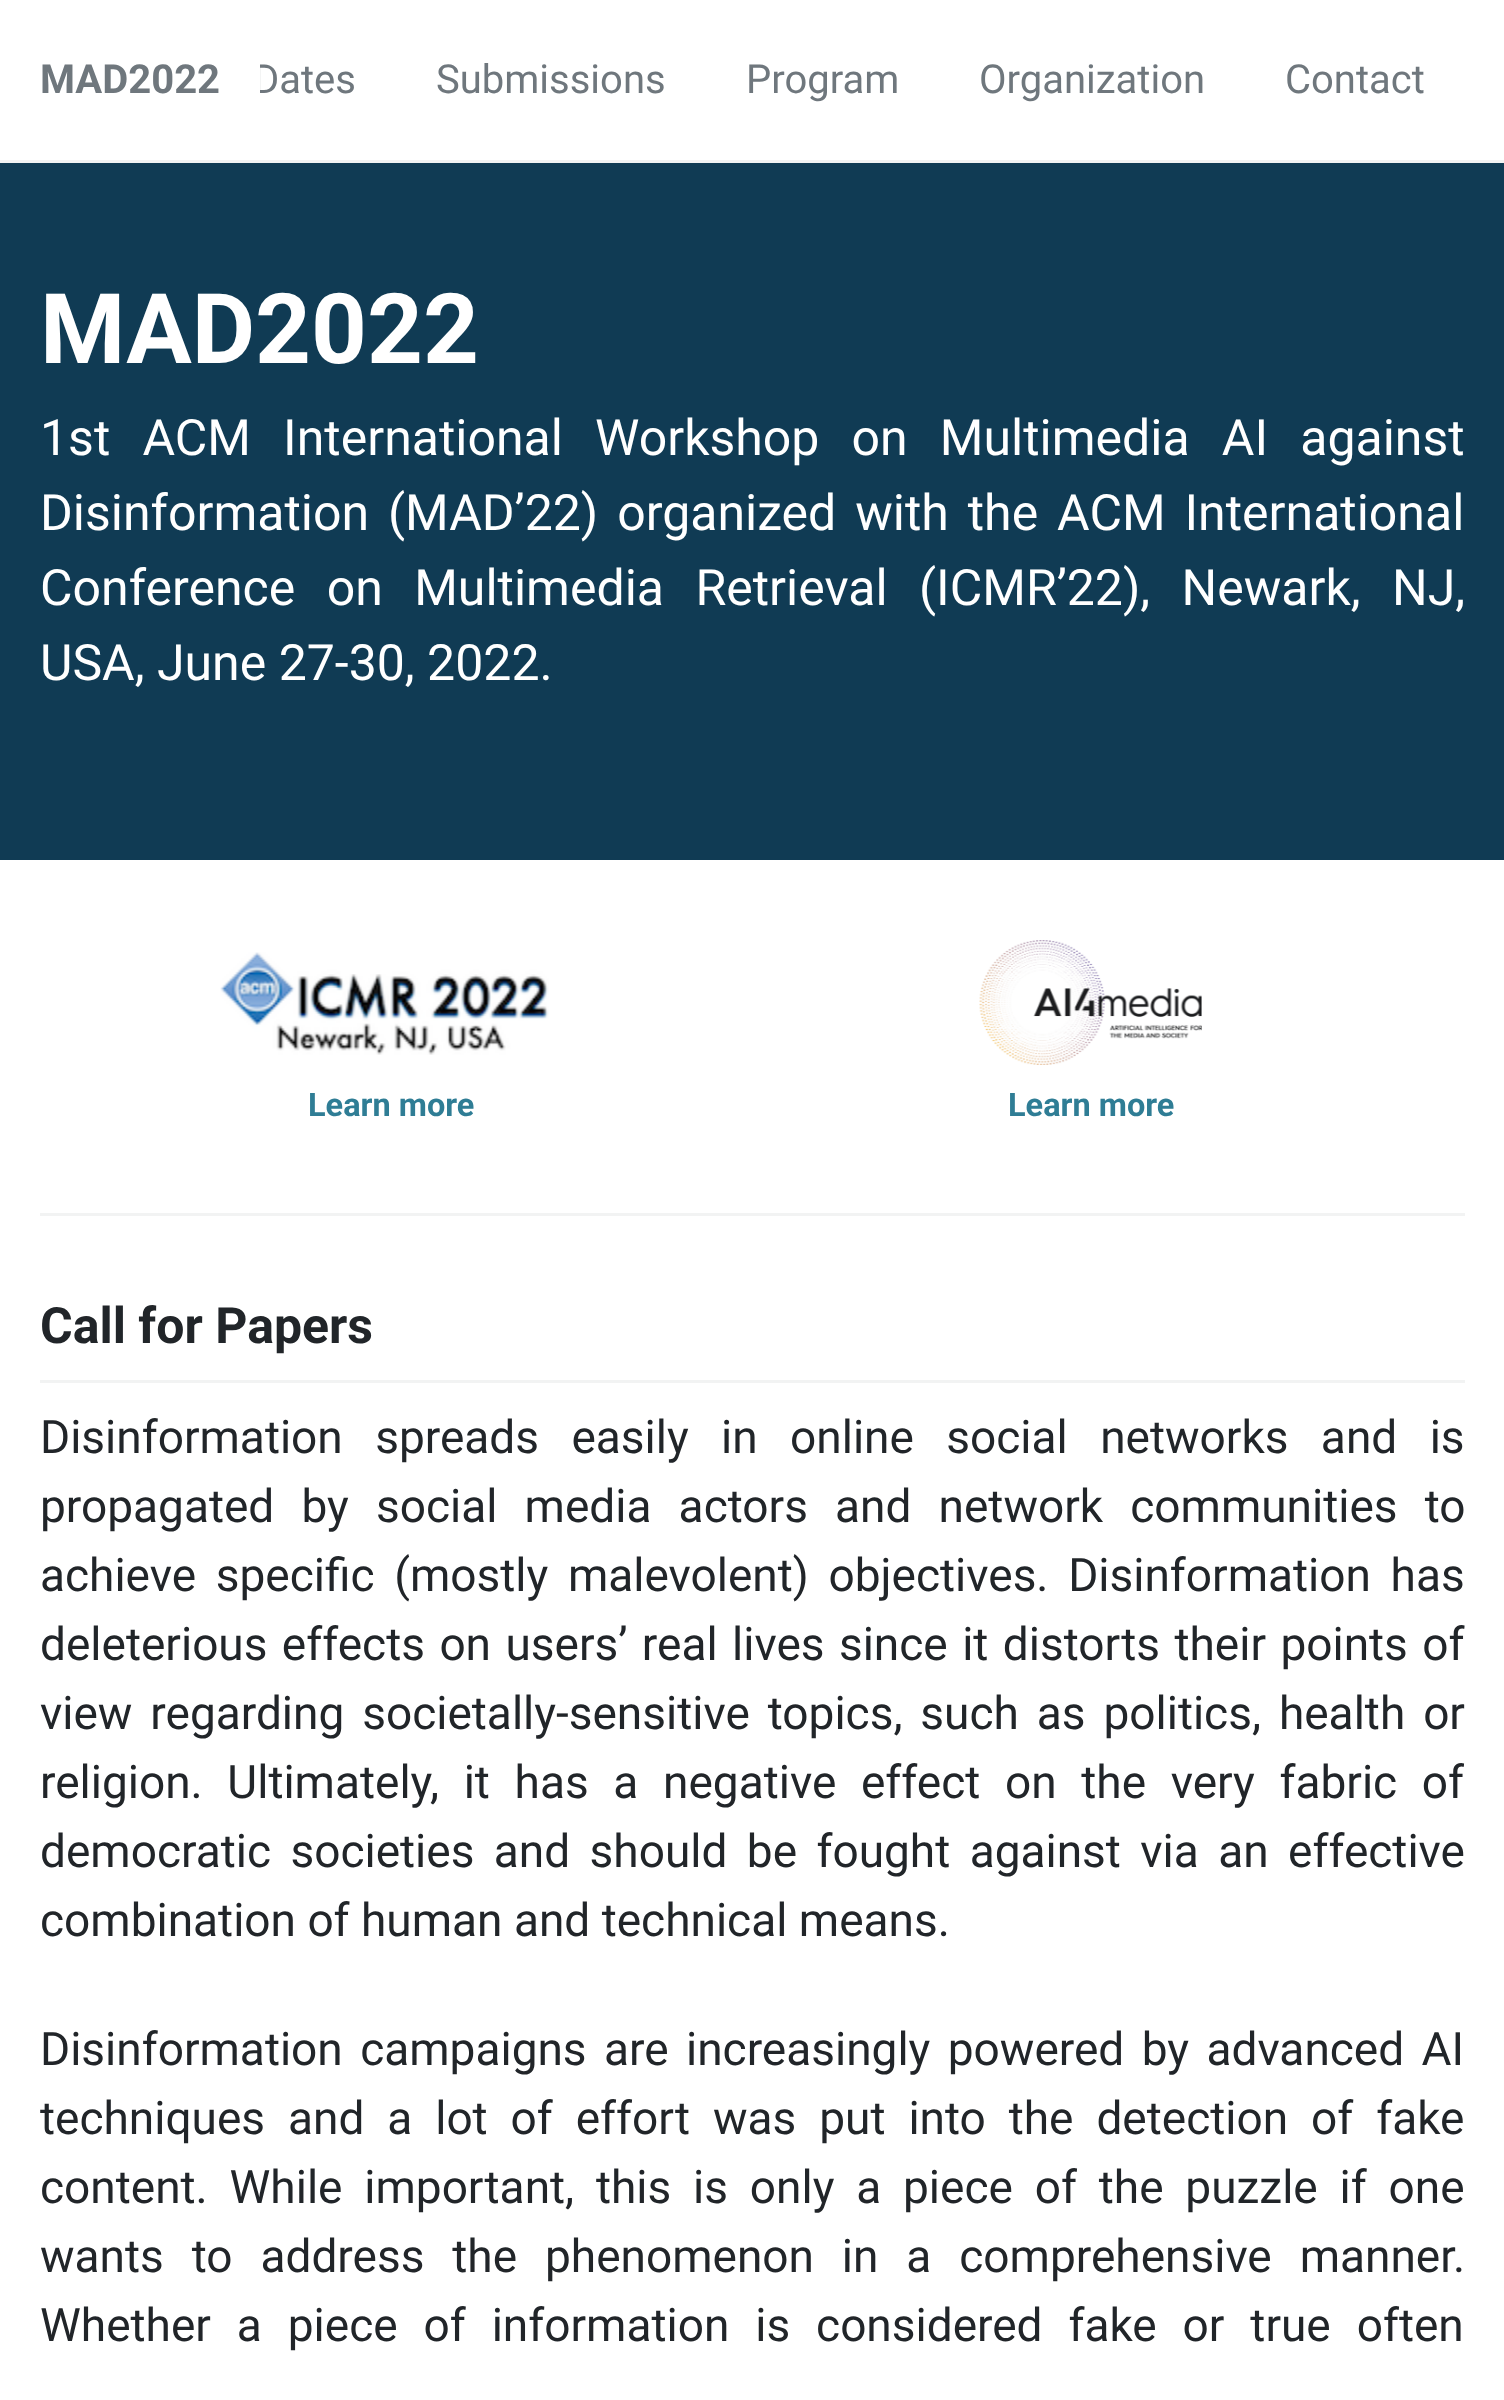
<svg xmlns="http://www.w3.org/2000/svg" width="1504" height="2400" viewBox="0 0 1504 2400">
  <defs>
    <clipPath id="clip1"><path d="M260 50h1205v60H260z"/></clipPath>
  </defs>
  <rect width="100%" height="100%" fill="#fff"/>
  <path d="M0 160h1504v3H0z" fill="#f2f3f3"/>
  <path d="M0 163h1504v697H0z" fill="#103b54"/>
  <path d="M40 1213h1425v3H40z" fill="#f2f3f3"/>
  <image x="220" y="952" width="329" height="103" href="img/1.png"/>
  <image x="979" y="940" width="223" height="125" href="img/2.png"/>
  <path d="M40 1380h1425v3H40z" fill="#f2f3f3"/>
  <text x="40" y="93" font-family="Roboto" font-size="40" font-weight="bold" fill="#6f777d">MAD2022</text>
  <g clip-path="url(#clip1)">
    <text x="253" y="93" font-family="Roboto" font-size="40" fill="#6f777d">Dates</text>
  </g>
  <g font-family="Roboto" font-size="40" fill="#6f777d">
    <text x="436" y="93">Submissions</text>
    <text x="746" y="93">Program</text>
    <text x="979" y="93">Organization</text>
    <text x="1285" y="93">Contact</text>
  </g>
  <text x="40" y="363" font-family="Roboto" font-size="97.5" font-weight="bold" fill="#fff">MAD2022</text>
  <g font-family="Roboto" font-size="50" fill="#fff">
    <text x="40" y="455" word-spacing="19.75">1st ACM International Workshop on Multimedia AI against</text>
    <text x="40" y="530" word-spacing="6.5">Disinformation (MAD’22) organized with the ACM International</text>
    <text x="40" y="605" word-spacing="19">Conference on Multimedia Retrieval (ICMR’22), Newark, NJ,</text>
    <text x="40" y="680">USA, June 27-30, 2022.</text>
  </g>
  <g font-family="Roboto" font-size="32.5" font-weight="bold" fill="#2f7d95">
    <text x="308" y="1116">Learn more</text>
    <text x="1008" y="1116">Learn more</text>
  </g>
  <text x="40" y="1343" font-family="Roboto" font-size="50" font-weight="bold" fill="#212529">Call for Papers</text>
  <g font-family="Roboto" font-size="46" fill="#212529">
    <text x="40" y="1453" word-spacing="21">Disinformation spreads easily in online social networks and is</text>
    <text x="40" y="1522" word-spacing="15.75">propagated by social media actors and network communities to</text>
    <text x="40" y="1591" word-spacing="8.25">achieve specific (mostly malevolent) objectives. Disinformation has</text>
    <text x="40" y="1660" word-spacing="3">deleterious effects on users’ real lives since it distorts their points of</text>
    <text x="40" y="1729" word-spacing="6.5">view regarding societally-sensitive topics, such as politics, health or</text>
    <text x="40" y="1798" word-spacing="13.25">religion. Ultimately, it has a negative effect on the very fabric of</text>
    <text x="40" y="1867" word-spacing="8">democratic societies and should be fought against via an effective</text>
    <text x="40" y="1936">combination of human and technical means.</text>
    <text x="40" y="2065" word-spacing="6">Disinformation campaigns are increasingly powered by advanced AI</text>
    <text x="40" y="2134" word-spacing="11.5">techniques and a lot of effort was put into the detection of fake</text>
    <text x="40" y="2203" word-spacing="10.4">content. While important, this is only a piece of the puzzle if one</text>
    <text x="40" y="2272" word-spacing="16.5">wants to address the phenomenon in a comprehensive manner.</text>
    <text x="40" y="2341" word-spacing="14.5">Whether a piece of information is considered fake or true often</text>
  </g>
</svg>
